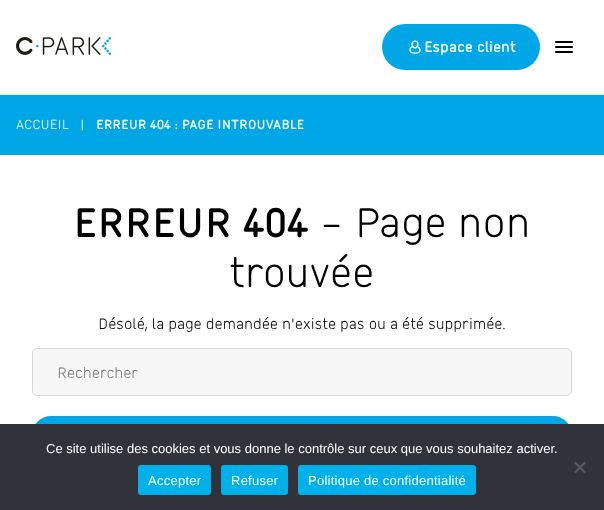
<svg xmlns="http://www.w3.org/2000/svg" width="604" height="510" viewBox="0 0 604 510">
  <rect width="100%" height="100%" fill="#fff"/>
  <path d="M0 94h604v1H0z" fill="#f1f1f1"/>
  <image x="16" y="37" width="95" height="18" href="img/1.png"/>
  <rect x="382" y="24" width="158" height="46" rx="23" fill="#00a6e6"/>
  <image x="409" y="40" width="12" height="14" href="img/2.png"/>
  <rect x="555" y="46" width="18" height="2" rx="1" fill="#000"/>
  <rect x="555" y="41" width="18" height="2" rx="1" fill="#000"/>
  <rect x="555" y="51" width="18" height="2" rx="1" fill="#000"/>
  <path d="M0 95h604v60H0z" fill="#00a6e6"/>
  <rect x="32.5" y="348.5" width="539" height="47" rx="4.5" fill="#f7f7f7" stroke="#d6d6d6"/>
  <rect x="32" y="416" width="540" height="38" rx="19" fill="#00a6e6"/>
  <path d="M0 424h604v86H0z" fill="#32323a"/>
  <path d="M584.5 461.5L586 463L575.5 473.5L574 472Z" fill="#59595d"/>
  <path d="M574 463L575.5 461.5L586 472L584.5 473.5Z" fill="#59595d"/>
  <rect x="138" y="465" width="73" height="30" rx="3" fill="#00b0eb"/>
  <rect x="221" y="465" width="67" height="30" rx="3" fill="#00b0eb"/>
  <rect x="298" y="465" width="178" height="30" rx="3" fill="#00b0eb"/>
  <text x="424" y="52" font-family="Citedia" font-size="16" font-weight="bold" fill="#fff">Espace client</text>
  <g font-family="Citedia" font-size="14" fill="#fff">
    <text x="16" y="129">ACCUEIL</text>
    <text x="80" y="129">|</text>
  </g>
  <text x="96" y="129" font-family="Citedia" font-size="14" font-weight="bold" fill="#fff">ERREUR 404 : PAGE INTROUVABLE</text>
  <text x="73" y="237" font-family="Citedia" font-size="44" font-weight="bold" fill="#000">ERREUR 404</text>
  <g font-family="Citedia" font-size="44" fill="#000">
    <text x="320" y="237">- Page non</text>
    <text x="229" y="287">trouvée</text>
  </g>
  <text x="98" y="329" font-family="Citedia" font-size="16" fill="#000">Désolé, la page demandée n'existe pas ou a été supprimée.</text>
  <text x="57" y="378" font-family="Citedia" font-size="16" fill="#757575">Rechercher</text>
  <text x="46" y="453" font-family="Liberation Sans" font-size="13" fill="#fff">Ce site utilise des cookies et vous donne le contrôle sur ceux que vous souhaitez activer.</text>
  <g font-family="Liberation Sans" font-size="13" letter-spacing="0.25" fill="#fff">
    <text x="148" y="485">Accepter</text>
    <text x="231" y="485">Refuser</text>
    <text x="308" y="485">Politique de confidentialité</text>
  </g>
</svg>
